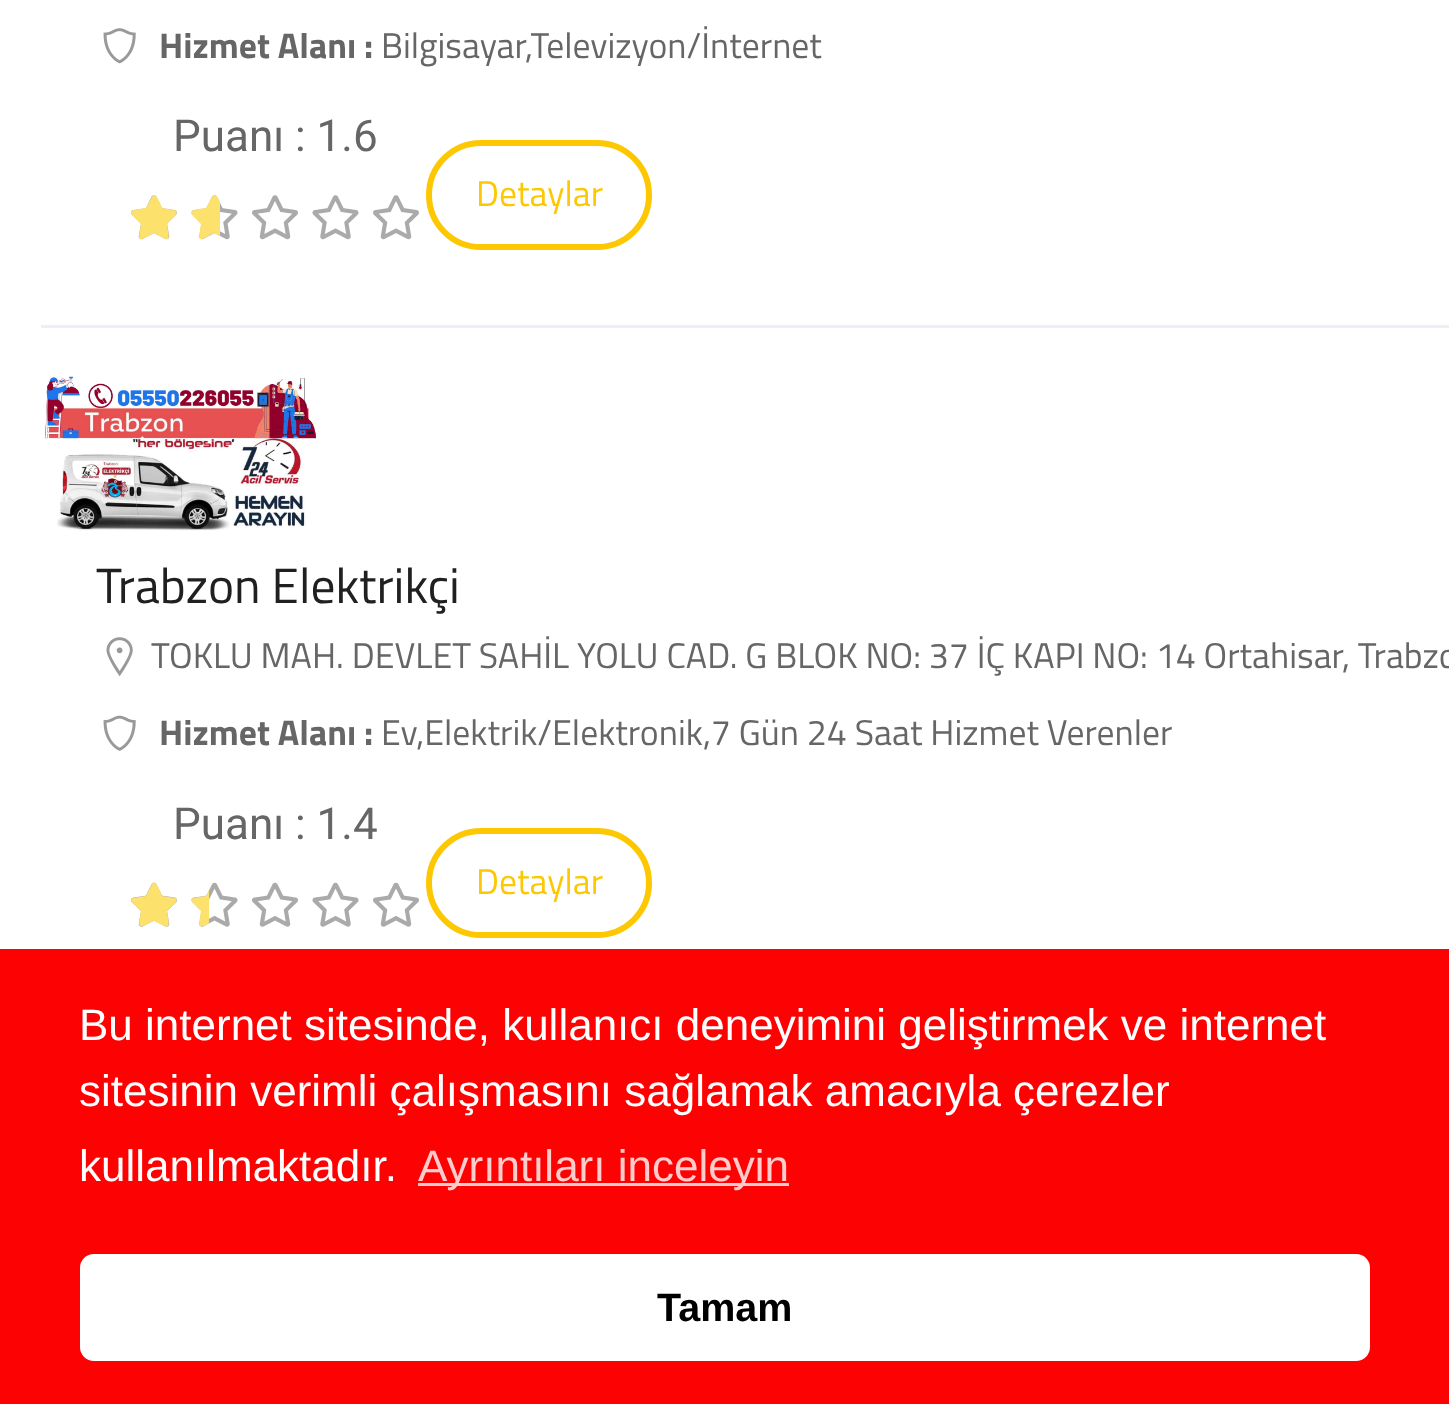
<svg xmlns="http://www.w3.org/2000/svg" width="1449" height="1404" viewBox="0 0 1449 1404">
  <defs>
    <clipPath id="clip1"><path d="M124 179h96v80H124z"/></clipPath>
    <clipPath id="clip2"><path d="M124 866h85v80H124z"/></clipPath>
  </defs>
  <rect width="100%" height="100%" fill="#fff"/>
  <path d="M41 325h1408v3H41z" fill="#edeff7"/>
  <image x="103" y="28" width="33" height="36" href="img/1.png"/>
  <image x="131" y="195" width="46" height="45" href="img/2.png"/>
  <path d="M152 197C155 189 162 207 162 208C181 211 181 210 167 224C170 243 171 242 154 233C137 242 138 243 141 224C127 210 127 211 146 208Z" fill="#fde16d"/>
  <image x="191" y="195" width="47" height="45" href="img/3.png"/>
  <g clip-path="url(#clip1)">
    <path d="M212 197C216 189 222 207 223 208C242 211 242 210 228 224C231 243 232 242 214 233C197 242 198 243 201 224C187 210 187 211 206 208Z" fill="#fde16d"/>
  </g>
  <image x="252" y="195" width="46" height="45" href="img/2.png"/>
  <image x="312" y="195" width="47" height="45" href="img/3.png"/>
  <image x="373" y="195" width="46" height="45" href="img/2.png"/>
  <rect x="429" y="143" width="220" height="104" rx="52" fill="none" stroke="#fdc802" stroke-width="6"/>
  <image x="44" y="376" width="273" height="155" href="img/4.png"/>
  <image x="106" y="637" width="27" height="40" href="img/5.png"/>
  <image x="103" y="715" width="33" height="36" href="img/6.png"/>
  <image x="131" y="882" width="46" height="45" href="img/7.png"/>
  <image x="191" y="882" width="47" height="45" href="img/8.png"/>
  <image x="252" y="882" width="46" height="45" href="img/7.png"/>
  <image x="312" y="882" width="47" height="45" href="img/8.png"/>
  <image x="373" y="882" width="46" height="45" href="img/7.png"/>
  <path d="M152 884C155 877 162 895 162 896C181 899 181 897 167 911C170 930 171 929 154 921C137 929 138 930 141 911C127 897 127 899 146 896Z" fill="#fde16d"/>
  <g clip-path="url(#clip2)">
    <path d="M212 884C216 877 222 895 223 896C242 899 242 897 228 911C231 930 232 929 214 921C197 929 198 930 201 911C187 897 187 899 206 896Z" fill="#fde16d"/>
  </g>
  <rect x="429" y="831" width="220" height="104" rx="52" fill="none" stroke="#fdc802" stroke-width="6"/>
  <path d="M0 949h1449v455H0z" fill="#fd0202"/>
  <path d="M418 1183h371v3H418z" fill="#fcc"/>
  <rect x="80" y="1254" width="1290" height="107" rx="14" fill="#fff"/>
  <text x="159" y="58" font-family="Titillium Web" font-size="35.75" font-weight="bold" fill="#666">Hizmet Alanı :</text>
  <text x="381" y="58" font-family="Titillium Web" font-size="35.75" fill="#666">Bilgisayar,Televizyon/İnternet</text>
  <text x="173" y="151" font-family="Roboto" font-size="44" fill="#666">Puanı : 1.6</text>
  <text x="476" y="206" font-family="Titillium Web" font-size="35.75" fill="#fdc802">Detaylar</text>
  <text x="96" y="603" font-family="Titillium Web" font-size="49.5" fill="#202020">Trabzon Elektrikçi</text>
  <text x="151" y="668" font-family="Titillium Web" font-size="35.75" fill="#666">TOKLU MAH. DEVLET SAHİL YOLU CAD. G BLOK NO: 37 İÇ KAPI NO: 14 Ortahisar, Trabzo</text>
  <text x="159" y="745" font-family="Titillium Web" font-size="35.75" font-weight="bold" fill="#666">Hizmet Alanı :</text>
  <text x="381" y="745" font-family="Titillium Web" font-size="35.75" fill="#666">Ev,Elektrik/Elektronik,7 Gün 24 Saat Hizmet Verenler</text>
  <text x="173" y="839" font-family="Roboto" font-size="44" fill="#666">Puanı : 1.4</text>
  <text x="476" y="894" font-family="Titillium Web" font-size="35.75" fill="#fdc802">Detaylar</text>
  <g font-family="Liberation Sans" font-size="44" fill="#fff">
    <text x="79" y="1040">Bu internet sitesinde, kullanıcı deneyimini geliştirmek ve internet</text>
    <text x="79" y="1106">sitesinin verimli çalışmasını sağlamak amacıyla çerezler</text>
    <text x="79" y="1181">kullanılmaktadır.</text>
  </g>
  <text x="418" y="1181" font-family="Liberation Sans" font-size="44" fill="#fcc">Ayrıntıları inceleyin</text>
  <text x="657" y="1321" font-family="Liberation Sans" font-size="39.5" font-weight="bold" fill="#000">Tamam</text>
</svg>
